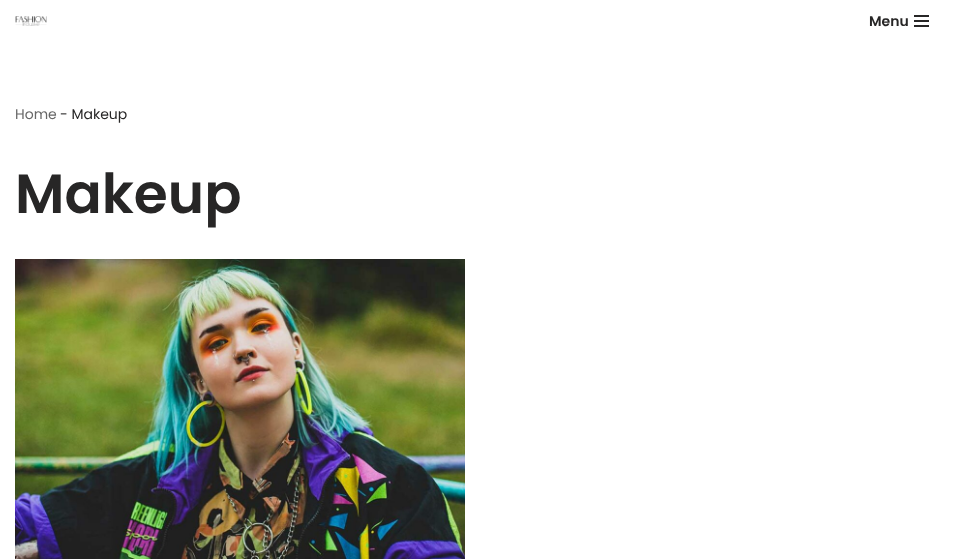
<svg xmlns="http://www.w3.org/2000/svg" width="959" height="560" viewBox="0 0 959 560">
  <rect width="100%" height="100%" fill="#fff"/>
  <image x="15" y="16" width="32" height="10" href="img/1.png"/>
  <path d="M914 15h15v2H914z" fill="#272626"/>
  <path d="M914 20h15v2H914z" fill="#272626"/>
  <path d="M914 25h15v2H914z" fill="#272626"/>
  <image x="15" y="259" width="450" height="300" href="img/2.png"/>
  <text x="869" y="26" font-family="Poppins" font-size="14" font-weight="600" fill="#272626">Menu</text>
  <text x="15" y="119" font-family="Poppins" font-size="14" fill="#676767">Home</text>
  <text x="60" y="119" font-family="Poppins" font-size="14" fill="#272626">- Makeup</text>
  <text x="15" y="213" font-family="Poppins" font-size="55" font-weight="600" fill="#272626">Makeup</text>
</svg>
